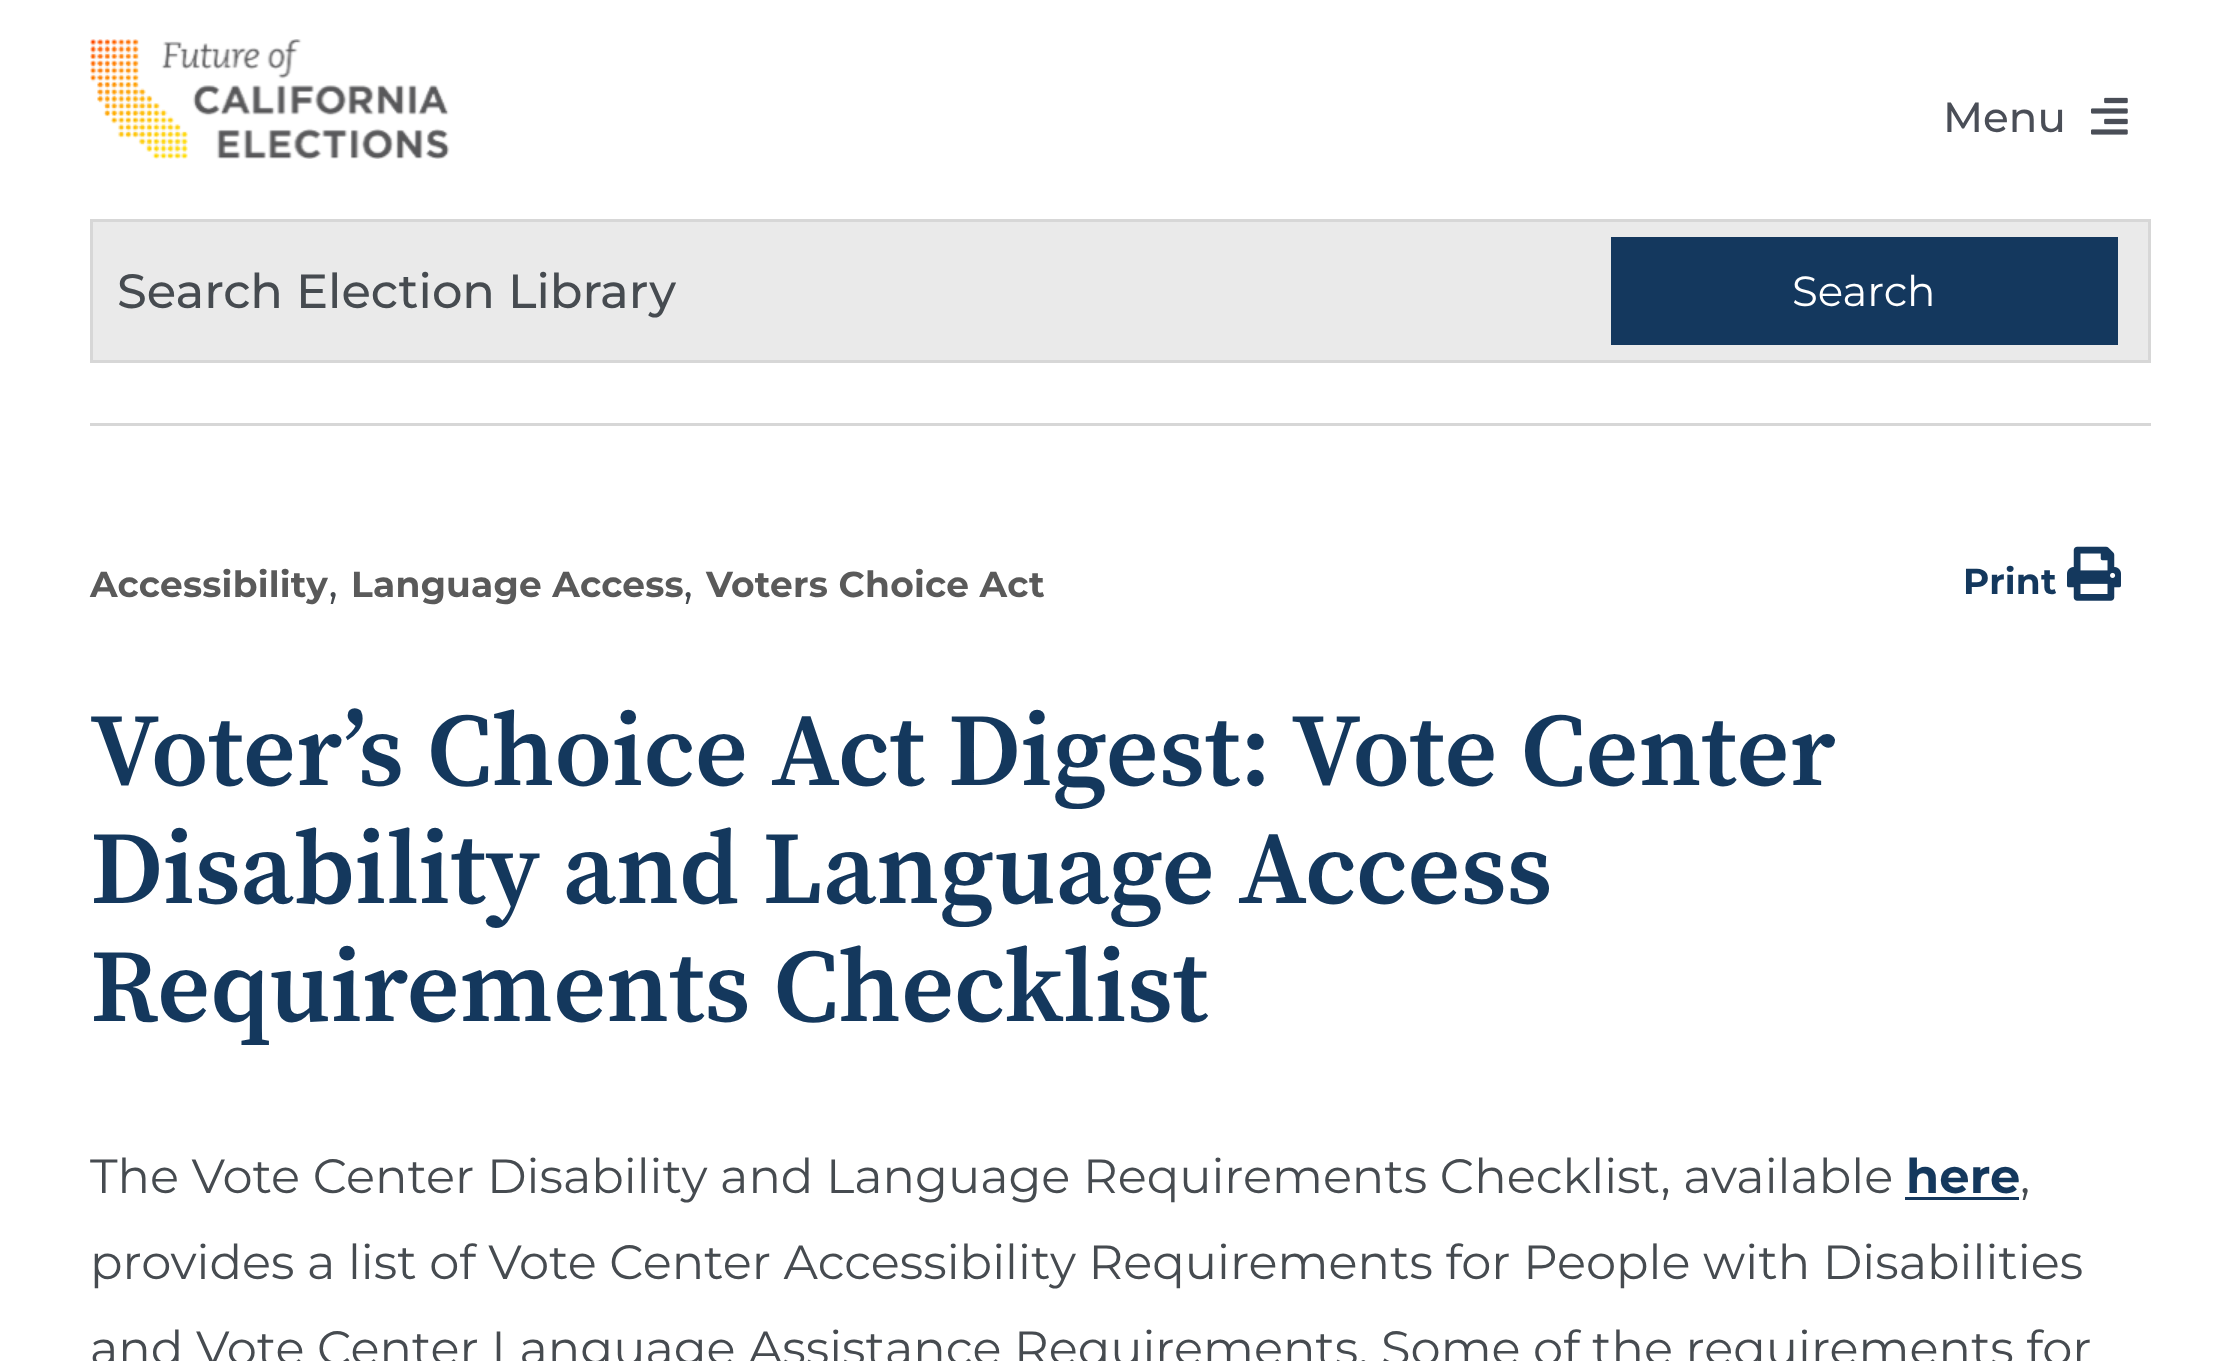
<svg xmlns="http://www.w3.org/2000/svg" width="2240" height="1361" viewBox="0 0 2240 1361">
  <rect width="100%" height="100%" fill="#fff"/>
  <image x="90" y="39" width="360" height="120" href="img/1.png"/>
  <image x="2091" y="97" width="37" height="38" href="img/2.png"/>
  <path d="M90 219h2061v3H90z" fill="#d7d7d7"/>
  <path d="M2148 219h3v144H2148z" fill="#d7d7d7"/>
  <path d="M90 360h2061v3H90z" fill="#d7d7d7"/>
  <path d="M90 219h3v144H90z" fill="#d7d7d7"/>
  <path d="M93 222h2055v138H93z" fill="#eaeaea"/>
  <path d="M1611 237h507v108H1611z" fill="#14385e"/>
  <path d="M90 423h2061v3H90z" fill="#d7d7d7"/>
  <image x="2067" y="546" width="54" height="55" href="img/3.png"/>
  <path d="M1905 1197h114v3H1905z" fill="#14385e"/>
  <text x="1943" y="132" font-family="'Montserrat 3'" font-size="42" font-weight="100" fill="#4a4e57">Menu</text>
  <text x="117" y="308" font-family="'Montserrat 3'" font-size="48" font-weight="100" fill="#464b50">Search Election Library</text>
  <text x="1792" y="306" font-family="'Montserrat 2'" font-size="42" font-weight="100" fill="#fff">Search</text>
  <text x="90" y="597" font-family="Montserrat" font-size="36" font-weight="100" letter-spacing="0.2" fill="#5a5a5a">Accessibility</text>
  <text x="328" y="597" font-family="'Montserrat 2'" font-size="48" font-weight="100" fill="#464b50">,</text>
  <text x="351" y="597" font-family="Montserrat" font-size="36" font-weight="100" letter-spacing="0.2" fill="#5a5a5a">Language Access</text>
  <text x="683" y="597" font-family="'Montserrat 2'" font-size="48" font-weight="100" fill="#464b50">,</text>
  <text x="706" y="597" font-family="Montserrat" font-size="36" font-weight="100" letter-spacing="0.2" fill="#5a5a5a">Voters Choice Act</text>
  <text x="1963" y="594" font-family="Montserrat" font-size="36" font-weight="100" letter-spacing="0.2" fill="#14385d">Print</text>
  <g font-family="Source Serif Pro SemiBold" font-size="103.25" font-weight="600" fill="#14385d">
    <text x="90" y="785">Voter’s Choice Act Digest: Vote Center</text>
    <text x="90" y="903">Disability and Language Access</text>
    <text x="90" y="1021">Requirements Checklist</text>
  </g>
  <text x="90" y="1193" font-family="'Montserrat 2'" font-size="48" font-weight="100" fill="#464b50">The Vote Center Disability and Language Requirements Checklist, available</text>
  <text x="1906" y="1193" font-family="Montserrat" font-size="48" font-weight="100" fill="#14385d">here</text>
  <g font-family="'Montserrat 2'" font-size="48" font-weight="100" fill="#464b50">
    <text x="2020" y="1193">,</text>
    <text x="90" y="1279">provides a list of Vote Center Accessibility Requirements for People with Disabilities</text>
    <text x="90" y="1365">and Vote Center Language Assistance Requirements. Some of the requirements for</text>
  </g>
</svg>
